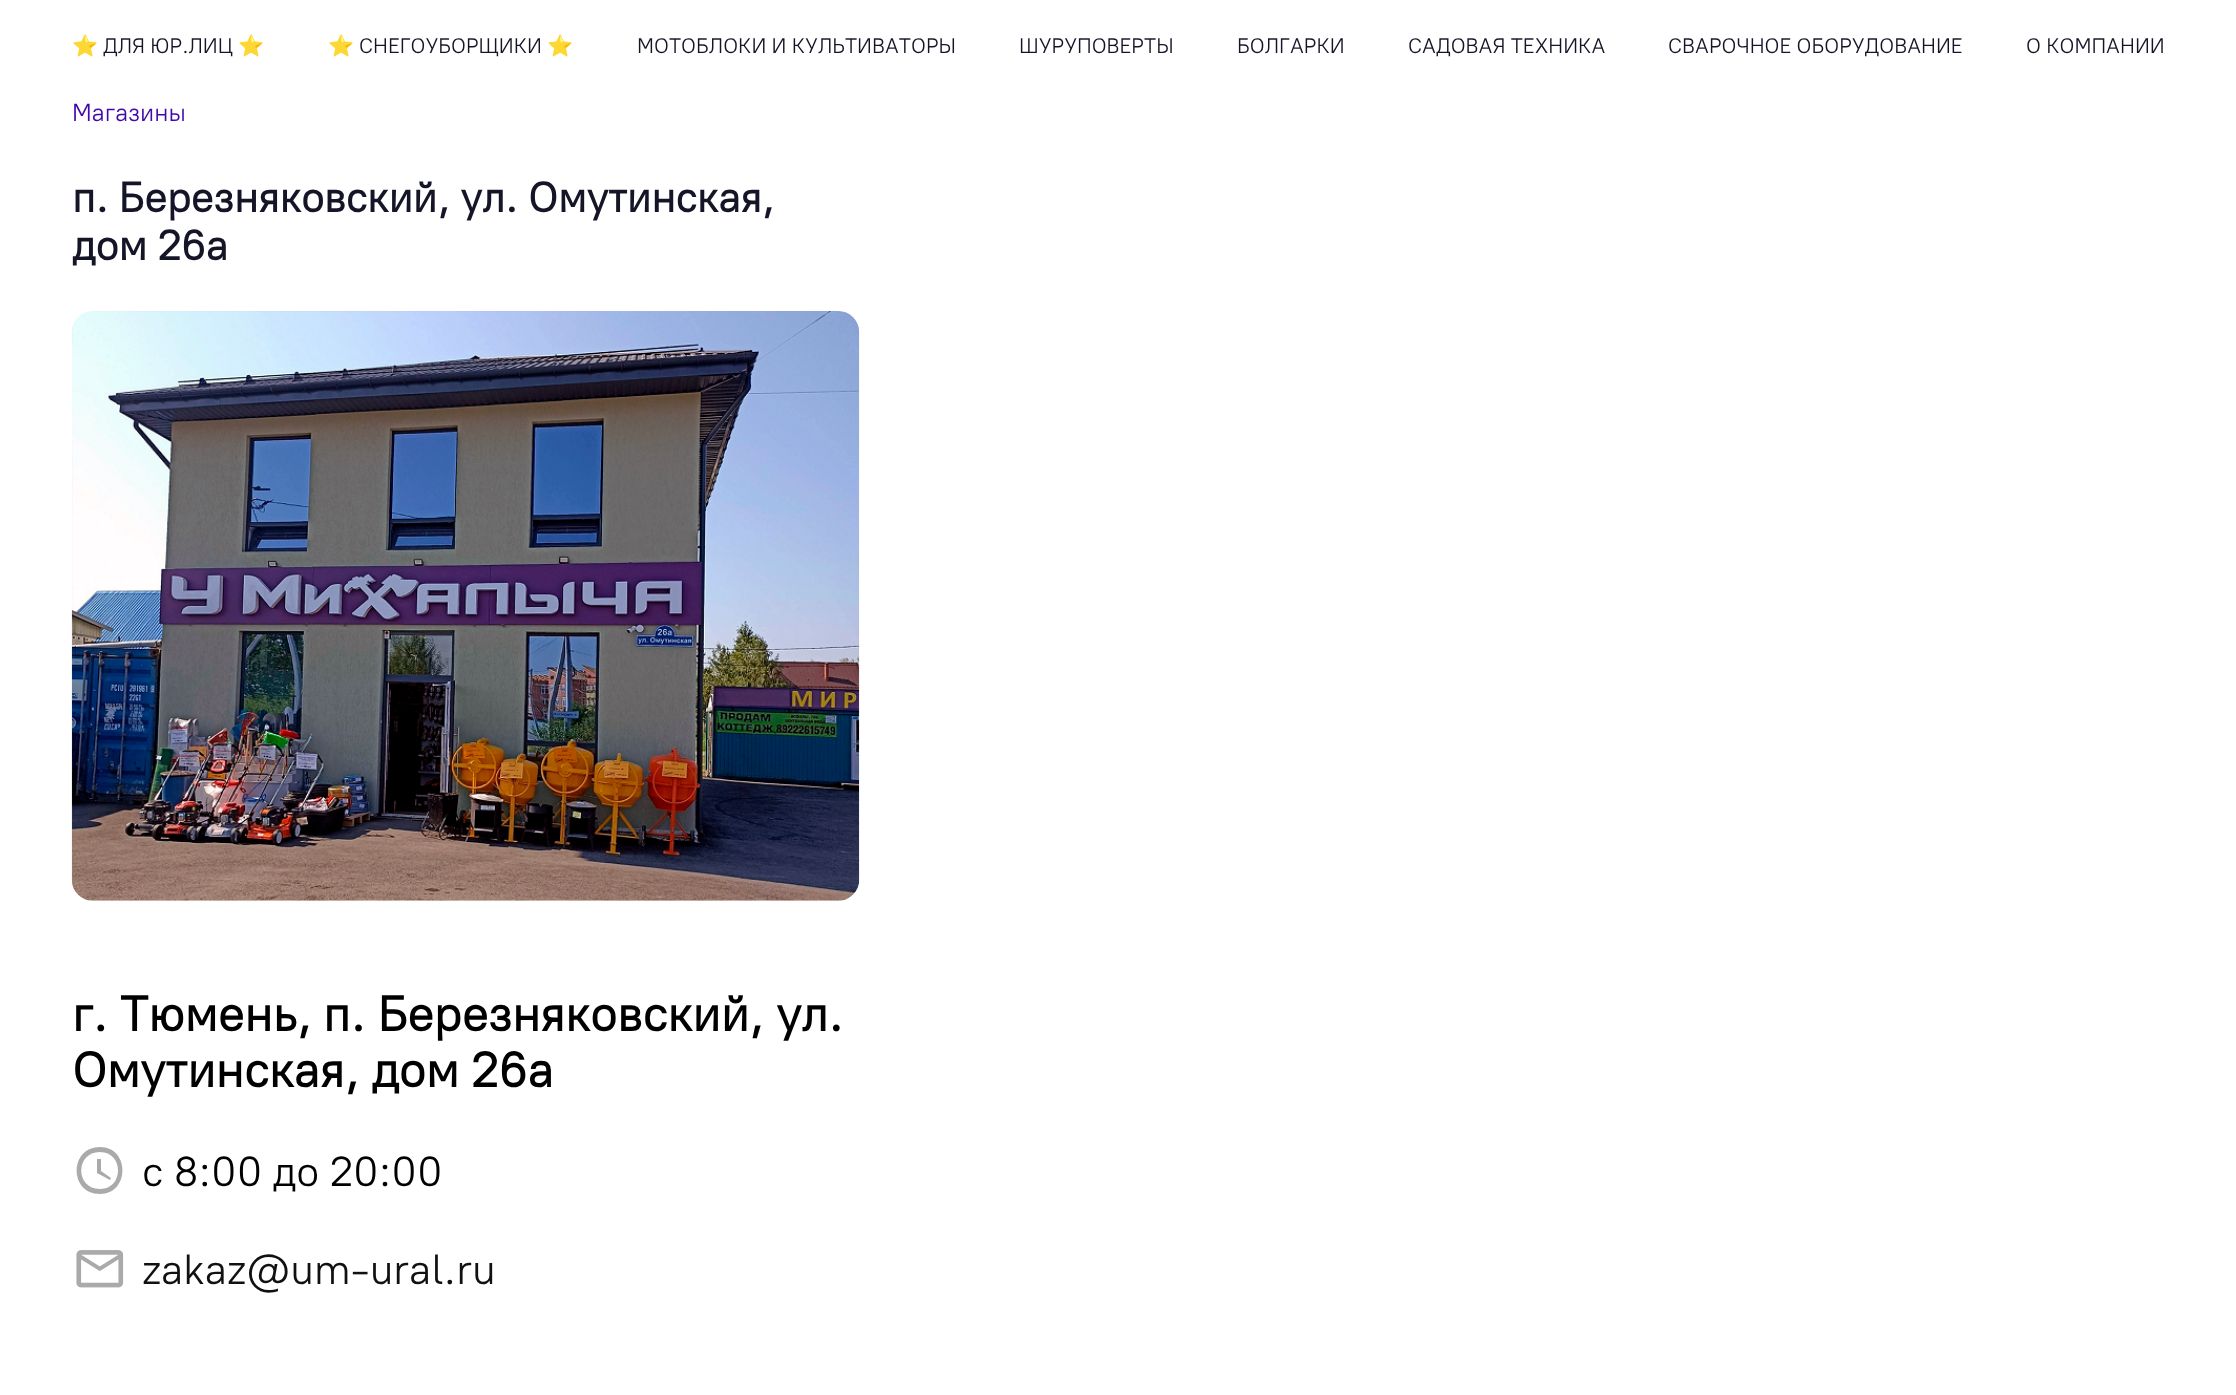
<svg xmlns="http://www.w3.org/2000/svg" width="2236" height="1395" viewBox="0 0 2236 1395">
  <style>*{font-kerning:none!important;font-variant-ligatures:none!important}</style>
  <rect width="100%" height="100%" fill="#fff"/>
  <image x="71" y="311" width="789" height="590" href="img/1.png"/>
  <path d="M100 1189C124 1189 124 1152 100 1152C75 1152 75 1189 100 1189M100 1147C130 1147 130 1194 100 1194C69 1194 69 1147 100 1147M101 1159V1171L111 1178L110 1180L97 1173V1159Z" fill="#aaa"/>
  <image x="76" y="1250" width="48" height="38" href="img/2.png"/>
  <text x="72" y="53" font-family="Noto Color Emoji" font-size="21" fill="#151528">⭐</text>
  <text x="103" y="53" font-family="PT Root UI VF" font-size="21" fill="#151528">ДЛЯ ЮР.ЛИЦ</text>
  <g font-family="Noto Color Emoji" font-size="21" fill="#151528">
    <text x="238" y="53">⭐</text>
    <text x="328" y="53">⭐</text>
  </g>
  <text x="359" y="53" font-family="PT Root UI VF" font-size="21" fill="#151528">СНЕГОУБОРЩИКИ</text>
  <text x="547" y="53" font-family="Noto Color Emoji" font-size="21" fill="#151528">⭐</text>
  <g font-family="PT Root UI VF" font-size="21" fill="#151528">
    <text x="637" y="53">МОТОБЛОКИ И КУЛЬТИВАТОРЫ</text>
    <text x="1019" y="53">ШУРУПОВЕРТЫ</text>
    <text x="1237" y="53">БОЛГАРКИ</text>
    <text x="1408" y="53">САДОВАЯ ТЕХНИКА</text>
    <text x="1668" y="53">СВАРОЧНОЕ ОБОРУДОВАНИЕ</text>
    <text x="2026" y="53">О КОМПАНИИ</text>
  </g>
  <text x="72" y="121" font-family="PT Root UI VF" font-size="24.5" fill="#4208a8">Магазины</text>
  <g font-family="PT Root UI VF" font-size="42" font-weight="bold" fill="#151528">
    <text x="72" y="212">п. Березняковский, ул. Омутинская,</text>
    <text x="72" y="260">дом 26а</text>
  </g>
  <g font-family="PT Root UI VF" font-size="49" font-weight="bold" fill="#000">
    <text x="72" y="1031">г. Тюмень,</text>
    <text x="323" y="1031">п. Березняковский, ул.</text>
    <text x="72" y="1087">Омутинская, дом 26а</text>
  </g>
  <text x="142" y="1186" font-family="PT Root UI VF" font-size="42" fill="#000">c 8:00 до 20:00</text>
  <text x="142" y="1284" font-family="PT Root UI VF" font-size="42" fill="#111">zakaz@um-ural.ru</text>
</svg>
